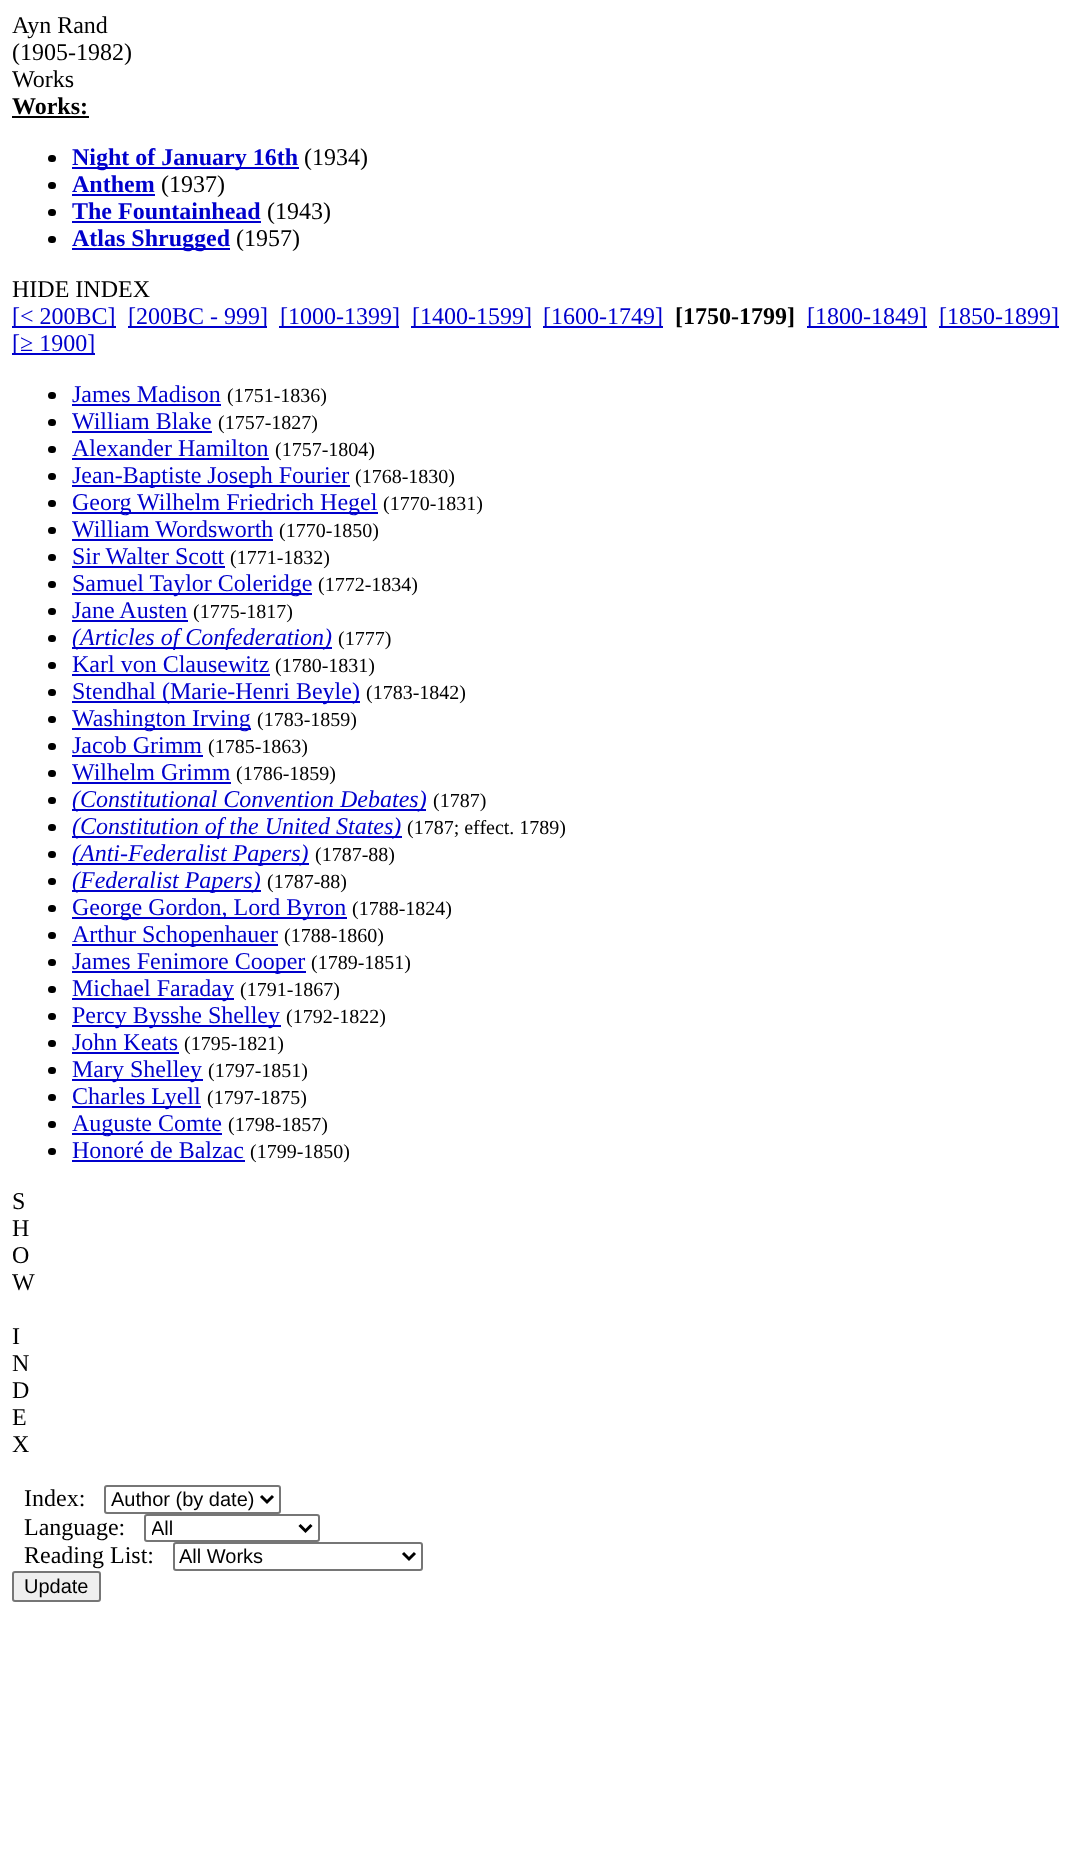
<svg xmlns="http://www.w3.org/2000/svg" width="1088" height="1867" viewBox="0 0 1088 1867">
  <defs>
    <clipPath id="clip1"><path d="M152 1515h142v26H152z"/></clipPath>
  </defs>
  <rect width="100%" height="100%" fill="#fff"/>
  <path d="M12 116h77v2H12z" fill="#000"/>
  <rect x="48" y="155" width="8" height="7" rx="3.5" fill="#000"/>
  <path d="M72 167h227v2H72z" fill="#00c"/>
  <rect x="48" y="182" width="8" height="7" rx="3.5" fill="#000"/>
  <path d="M72 194h83v2H72z" fill="#00c"/>
  <rect x="48" y="209" width="8" height="7" rx="3.5" fill="#000"/>
  <path d="M72 221h189v2H72z" fill="#00c"/>
  <rect x="48" y="236" width="8" height="7" rx="3.5" fill="#000"/>
  <path d="M72 248h158v2H72z" fill="#00c"/>
  <path d="M12 326h104v2H12z" fill="#00c"/>
  <path d="M128 326h139v2H128z" fill="#00c"/>
  <path d="M279 326h120v2H279z" fill="#00c"/>
  <path d="M411 326h120v2H411z" fill="#00c"/>
  <path d="M543 326h120v2H543z" fill="#00c"/>
  <path d="M807 326h120v2H807z" fill="#00c"/>
  <path d="M939 326h120v2H939z" fill="#00c"/>
  <path d="M12 353h83v2H12z" fill="#00c"/>
  <rect x="48" y="392" width="8" height="7" rx="3.5" fill="#000"/>
  <path d="M72 404h149v2H72z" fill="#00c"/>
  <rect x="48" y="419" width="8" height="7" rx="3.5" fill="#000"/>
  <path d="M72 431h140v2H72z" fill="#00c"/>
  <rect x="48" y="446" width="8" height="7" rx="3.5" fill="#000"/>
  <path d="M72 458h197v2H72z" fill="#00c"/>
  <rect x="48" y="473" width="8" height="7" rx="3.5" fill="#000"/>
  <path d="M72 485h278v2H72z" fill="#00c"/>
  <rect x="48" y="500" width="8" height="7" rx="3.5" fill="#000"/>
  <path d="M72 512h306v2H72z" fill="#00c"/>
  <rect x="48" y="527" width="8" height="7" rx="3.5" fill="#000"/>
  <path d="M72 539h201v2H72z" fill="#00c"/>
  <rect x="48" y="554" width="8" height="7" rx="3.5" fill="#000"/>
  <path d="M72 566h153v2H72z" fill="#00c"/>
  <rect x="48" y="581" width="8" height="7" rx="3.5" fill="#000"/>
  <path d="M72 593h240v2H72z" fill="#00c"/>
  <rect x="48" y="608" width="8" height="7" rx="3.5" fill="#000"/>
  <path d="M72 620h116v2H72z" fill="#00c"/>
  <rect x="48" y="635" width="8" height="7" rx="3.5" fill="#000"/>
  <path d="M72 647h260v2H72z" fill="#00c"/>
  <rect x="48" y="662" width="8" height="7" rx="3.5" fill="#000"/>
  <path d="M72 674h198v2H72z" fill="#00c"/>
  <rect x="48" y="689" width="8" height="7" rx="3.5" fill="#000"/>
  <path d="M72 701h288v2H72z" fill="#00c"/>
  <rect x="48" y="716" width="8" height="7" rx="3.5" fill="#000"/>
  <path d="M72 728h179v2H72z" fill="#00c"/>
  <rect x="48" y="743" width="8" height="7" rx="3.5" fill="#000"/>
  <path d="M72 755h131v2H72z" fill="#00c"/>
  <rect x="48" y="770" width="8" height="7" rx="3.5" fill="#000"/>
  <path d="M72 782h159v2H72z" fill="#00c"/>
  <rect x="48" y="797" width="8" height="7" rx="3.5" fill="#000"/>
  <path d="M72 809h354v2H72z" fill="#00c"/>
  <rect x="48" y="824" width="8" height="7" rx="3.5" fill="#000"/>
  <path d="M72 836h330v2H72z" fill="#00c"/>
  <rect x="48" y="851" width="8" height="7" rx="3.5" fill="#000"/>
  <path d="M72 863h237v2H72z" fill="#00c"/>
  <rect x="48" y="878" width="8" height="7" rx="3.5" fill="#000"/>
  <path d="M72 890h189v2H72z" fill="#00c"/>
  <rect x="48" y="905" width="8" height="7" rx="3.5" fill="#000"/>
  <path d="M72 917h275v2H72z" fill="#00c"/>
  <rect x="48" y="932" width="8" height="7" rx="3.5" fill="#000"/>
  <path d="M72 944h206v2H72z" fill="#00c"/>
  <rect x="48" y="959" width="8" height="7" rx="3.5" fill="#000"/>
  <path d="M72 971h234v2H72z" fill="#00c"/>
  <rect x="48" y="986" width="8" height="7" rx="3.5" fill="#000"/>
  <path d="M72 998h162v2H72z" fill="#00c"/>
  <rect x="48" y="1013" width="8" height="7" rx="3.5" fill="#000"/>
  <path d="M72 1025h209v2H72z" fill="#00c"/>
  <rect x="48" y="1040" width="8" height="7" rx="3.5" fill="#000"/>
  <path d="M72 1052h107v2H72z" fill="#00c"/>
  <rect x="48" y="1067" width="8" height="7" rx="3.5" fill="#000"/>
  <path d="M72 1079h131v2H72z" fill="#00c"/>
  <rect x="48" y="1094" width="8" height="7" rx="3.5" fill="#000"/>
  <path d="M72 1106h129v2H72z" fill="#00c"/>
  <rect x="48" y="1121" width="8" height="7" rx="3.5" fill="#000"/>
  <path d="M72 1133h150v2H72z" fill="#00c"/>
  <rect x="48" y="1148" width="8" height="7" rx="3.5" fill="#000"/>
  <path d="M72 1160h173v2H72z" fill="#00c"/>
  <rect x="105" y="1486" width="175" height="27" rx="2" fill="none" stroke="#767676" stroke-width="2"/>
  <path d="M261 1496L267 1502L273 1496" fill="none" stroke="#000" stroke-width="3"/>
  <rect x="145" y="1515" width="174" height="26" rx="2" fill="none" stroke="#767676" stroke-width="2"/>
  <path d="M299.5 1525L305.5 1531L311.5 1525" fill="none" stroke="#000" stroke-width="3"/>
  <rect x="174" y="1543" width="248" height="27" rx="2" fill="none" stroke="#767676" stroke-width="2"/>
  <path d="M403 1553L409 1559L415 1553" fill="none" stroke="#000" stroke-width="3"/>
  <rect x="13" y="1572" width="87" height="29" rx="2" fill="#efefef" stroke="#767676" stroke-width="2"/>
  <g font-family="Liberation Serif" font-size="24" fill="#000">
    <text x="12" y="33">Ayn Rand</text>
    <text x="12" y="60">(1905-1982)</text>
    <text x="12" y="87">Works</text>
  </g>
  <text x="12" y="114" font-family="Liberation Serif" font-size="24" font-weight="bold" fill="#000">Works:</text>
  <text x="72" y="165" font-family="Liberation Serif" font-size="24" font-weight="bold" fill="#00c">Night of January 16th</text>
  <text x="304" y="165" font-family="Liberation Serif" font-size="24" fill="#000">(1934)</text>
  <text x="72" y="192" font-family="Liberation Serif" font-size="24" font-weight="bold" fill="#00c">Anthem</text>
  <text x="161" y="192" font-family="Liberation Serif" font-size="24" fill="#000">(1937)</text>
  <text x="72" y="219" font-family="Liberation Serif" font-size="24" font-weight="bold" fill="#00c">The Fountainhead</text>
  <text x="267" y="219" font-family="Liberation Serif" font-size="24" fill="#000">(1943)</text>
  <text x="72" y="246" font-family="Liberation Serif" font-size="24" font-weight="bold" fill="#00c">Atlas Shrugged</text>
  <g font-family="Liberation Serif" font-size="24" fill="#000">
    <text x="236" y="246">(1957)</text>
    <text x="12" y="297">HIDE INDEX</text>
  </g>
  <g font-family="Liberation Serif" font-size="24" fill="#00c">
    <text x="12" y="324">[&lt; 200BC]</text>
    <text x="128" y="324">[200BC - 999]</text>
    <text x="280" y="324">[1000-1399]</text>
    <text x="412" y="324">[1400-1599]</text>
    <text x="543" y="324">[1600-1749]</text>
  </g>
  <text x="675" y="324" font-family="Liberation Serif" font-size="24" font-weight="bold" fill="#000">[1750-1799]</text>
  <g font-family="Liberation Serif" font-size="24" fill="#00c">
    <text x="807" y="324">[1800-1849]</text>
    <text x="939" y="324">[1850-1899]</text>
    <text x="12" y="351">[≥ 1900]</text>
    <text x="72" y="402">James Madison</text>
  </g>
  <text x="227" y="402" font-family="Liberation Serif" font-size="20" fill="#000">(1751-1836)</text>
  <text x="72" y="429" font-family="Liberation Serif" font-size="24" fill="#00c">William Blake</text>
  <text x="218" y="429" font-family="Liberation Serif" font-size="20" fill="#000">(1757-1827)</text>
  <text x="72" y="456" font-family="Liberation Serif" font-size="24" fill="#00c">Alexander Hamilton</text>
  <text x="275" y="456" font-family="Liberation Serif" font-size="20" fill="#000">(1757-1804)</text>
  <text x="72" y="483" font-family="Liberation Serif" font-size="24" fill="#00c">Jean-Baptiste Joseph Fourier</text>
  <text x="355" y="483" font-family="Liberation Serif" font-size="20" fill="#000">(1768-1830)</text>
  <text x="72" y="510" font-family="Liberation Serif" font-size="24" fill="#00c">Georg Wilhelm Friedrich Hegel</text>
  <text x="383" y="510" font-family="Liberation Serif" font-size="20" fill="#000">(1770-1831)</text>
  <text x="72" y="537" font-family="Liberation Serif" font-size="24" fill="#00c">William Wordsworth</text>
  <text x="279" y="537" font-family="Liberation Serif" font-size="20" fill="#000">(1770-1850)</text>
  <text x="72" y="564" font-family="Liberation Serif" font-size="24" fill="#00c">Sir Walter Scott</text>
  <text x="230" y="564" font-family="Liberation Serif" font-size="20" fill="#000">(1771-1832)</text>
  <text x="72" y="591" font-family="Liberation Serif" font-size="24" fill="#00c">Samuel Taylor Coleridge</text>
  <text x="318" y="591" font-family="Liberation Serif" font-size="20" fill="#000">(1772-1834)</text>
  <text x="72" y="618" font-family="Liberation Serif" font-size="24" fill="#00c">Jane Austen</text>
  <text x="193" y="618" font-family="Liberation Serif" font-size="20" fill="#000">(1775-1817)</text>
  <text x="72" y="645" font-family="Liberation Serif" font-size="24" font-style="italic" fill="#00c">(Articles of Confederation)</text>
  <text x="338" y="645" font-family="Liberation Serif" font-size="20" fill="#000">(1777)</text>
  <text x="72" y="672" font-family="Liberation Serif" font-size="24" fill="#00c">Karl von Clausewitz</text>
  <text x="275" y="672" font-family="Liberation Serif" font-size="20" fill="#000">(1780-1831)</text>
  <text x="72" y="699" font-family="Liberation Serif" font-size="24" fill="#00c">Stendhal (Marie-Henri Beyle)</text>
  <text x="366" y="699" font-family="Liberation Serif" font-size="20" fill="#000">(1783-1842)</text>
  <text x="72" y="726" font-family="Liberation Serif" font-size="24" fill="#00c">Washington Irving</text>
  <text x="257" y="726" font-family="Liberation Serif" font-size="20" fill="#000">(1783-1859)</text>
  <text x="72" y="753" font-family="Liberation Serif" font-size="24" fill="#00c">Jacob Grimm</text>
  <text x="208" y="753" font-family="Liberation Serif" font-size="20" fill="#000">(1785-1863)</text>
  <text x="72" y="780" font-family="Liberation Serif" font-size="24" fill="#00c">Wilhelm Grimm</text>
  <text x="236" y="780" font-family="Liberation Serif" font-size="20" fill="#000">(1786-1859)</text>
  <text x="72" y="807" font-family="Liberation Serif" font-size="24" font-style="italic" fill="#00c">(Constitutional Convention Debates)</text>
  <text x="433" y="807" font-family="Liberation Serif" font-size="20" fill="#000">(1787)</text>
  <text x="72" y="834" font-family="Liberation Serif" font-size="24" font-style="italic" fill="#00c">(Constitution of the United States)</text>
  <text x="407" y="834" font-family="Liberation Serif" font-size="20" fill="#000">(1787; effect. 1789)</text>
  <text x="72" y="861" font-family="Liberation Serif" font-size="24" font-style="italic" fill="#00c">(Anti-Federalist Papers)</text>
  <text x="315" y="861" font-family="Liberation Serif" font-size="20" fill="#000">(1787-88)</text>
  <text x="72" y="888" font-family="Liberation Serif" font-size="24" font-style="italic" fill="#00c">(Federalist Papers)</text>
  <text x="267" y="888" font-family="Liberation Serif" font-size="20" fill="#000">(1787-88)</text>
  <text x="72" y="915" font-family="Liberation Serif" font-size="24" fill="#00c">George Gordon, Lord Byron</text>
  <text x="352" y="915" font-family="Liberation Serif" font-size="20" fill="#000">(1788-1824)</text>
  <text x="72" y="942" font-family="Liberation Serif" font-size="24" fill="#00c">Arthur Schopenhauer</text>
  <text x="284" y="942" font-family="Liberation Serif" font-size="20" fill="#000">(1788-1860)</text>
  <text x="72" y="969" font-family="Liberation Serif" font-size="24" fill="#00c">James Fenimore Cooper</text>
  <text x="311" y="969" font-family="Liberation Serif" font-size="20" fill="#000">(1789-1851)</text>
  <text x="72" y="996" font-family="Liberation Serif" font-size="24" fill="#00c">Michael Faraday</text>
  <text x="240" y="996" font-family="Liberation Serif" font-size="20" fill="#000">(1791-1867)</text>
  <text x="72" y="1023" font-family="Liberation Serif" font-size="24" fill="#00c">Percy Bysshe Shelley</text>
  <text x="286" y="1023" font-family="Liberation Serif" font-size="20" fill="#000">(1792-1822)</text>
  <text x="72" y="1050" font-family="Liberation Serif" font-size="24" fill="#00c">John Keats</text>
  <text x="184" y="1050" font-family="Liberation Serif" font-size="20" fill="#000">(1795-1821)</text>
  <text x="72" y="1077" font-family="Liberation Serif" font-size="24" fill="#00c">Mary Shelley</text>
  <text x="208" y="1077" font-family="Liberation Serif" font-size="20" fill="#000">(1797-1851)</text>
  <text x="72" y="1104" font-family="Liberation Serif" font-size="24" fill="#00c">Charles Lyell</text>
  <text x="207" y="1104" font-family="Liberation Serif" font-size="20" fill="#000">(1797-1875)</text>
  <text x="72" y="1131" font-family="Liberation Serif" font-size="24" fill="#00c">Auguste Comte</text>
  <text x="228" y="1131" font-family="Liberation Serif" font-size="20" fill="#000">(1798-1857)</text>
  <text x="72" y="1158" font-family="Liberation Serif" font-size="24" fill="#00c">Honoré de Balzac</text>
  <text x="250" y="1158" font-family="Liberation Serif" font-size="20" fill="#000">(1799-1850)</text>
  <g font-family="Liberation Serif" font-size="24" fill="#000">
    <text x="12" y="1209">S</text>
    <text x="12" y="1236">H</text>
    <text x="12" y="1263">O</text>
    <text x="12" y="1290">W</text>
    <text x="12" y="1344">I</text>
    <text x="12" y="1371">N</text>
    <text x="12" y="1398">D</text>
    <text x="12" y="1425">E</text>
    <text x="12" y="1452">X</text>
    <text x="24" y="1506">Index:</text>
  </g>
  <text x="111" y="1506" font-family="Liberation Sans" font-size="20" fill="#000">Author (by date)</text>
  <text x="24" y="1535" font-family="Liberation Serif" font-size="24" fill="#000">Language:</text>
  <g clip-path="url(#clip1)">
    <text x="151" y="1535" font-family="Liberation Sans" font-size="20" fill="#000">All</text>
  </g>
  <text x="24" y="1563" font-family="Liberation Serif" font-size="24" fill="#000">Reading List:</text>
  <g font-family="Liberation Sans" font-size="20" fill="#000">
    <text x="179" y="1563">All Works</text>
    <text x="24" y="1593">Update</text>
  </g>
</svg>
